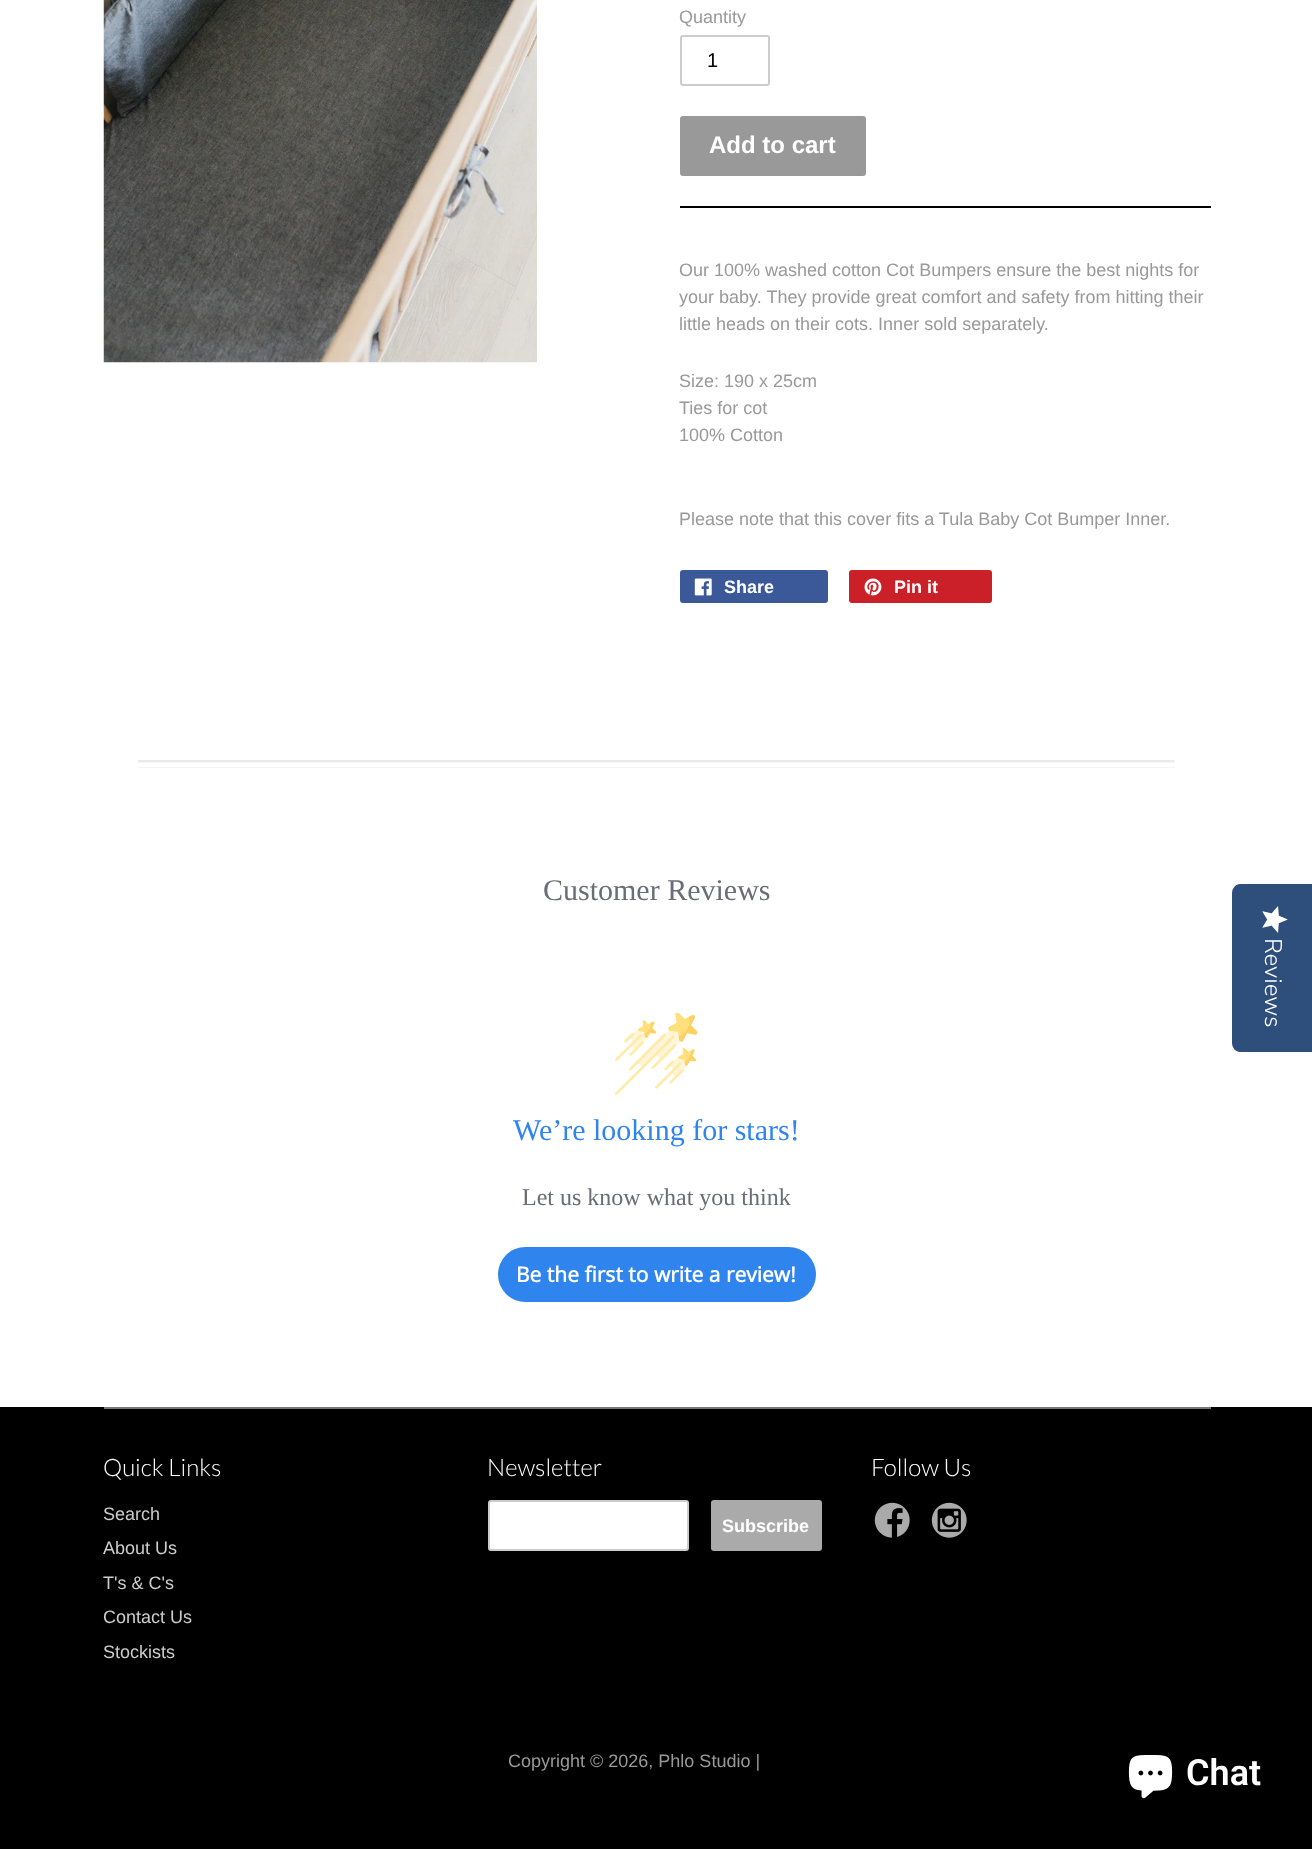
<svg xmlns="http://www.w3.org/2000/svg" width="1312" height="1849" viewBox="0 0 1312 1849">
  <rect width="100%" height="100%" fill="#fff"/>
  <image x="103" y="0" width="434" height="363" href="img/1.png"/>
  <path d="M680 206h531v2H680z" fill="#000"/>
  <rect x="681" y="36" width="88" height="49" rx="2" fill="none" stroke="#ccc" stroke-width="2"/>
  <rect x="680" y="116" width="186" height="60" rx="3" fill="#999"/>
  <rect x="680" y="570" width="148" height="33" rx="3" fill="#3b5998"/>
  <image x="694" y="578" width="18" height="18" href="img/2.png"/>
  <rect x="849" y="570" width="143" height="33" rx="3" fill="#cb2027"/>
  <image x="864" y="578" width="18" height="18" href="img/3.png"/>
  <image x="138" y="760" width="1037" height="8" href="img/4.png"/>
  <image x="615" y="1013" width="83" height="82" href="img/5.png"/>
  <rect x="498" y="1247" width="318" height="55" rx="27.5" fill="#2f84ed"/>
  <path d="M1312 884V1052H1240C1236 1052 1232 1048 1232 1043V893C1232 888 1236 884 1240 884Z" fill="#2e4f7c"/>
  <image x="1262" y="906" width="26" height="27" href="img/6.png"/>
  <path d="M0 1407h1312v442H0z" fill="#000"/>
  <path d="M104 1407h1107v2H104z" fill="#777"/>
  <rect x="489" y="1501" width="199" height="49" rx="2" fill="#fff" stroke="#ccc" stroke-width="2"/>
  <rect x="711" y="1500" width="111" height="51" rx="3" fill="#aaa"/>
  <image x="874" y="1502" width="36" height="36" href="img/7.png"/>
  <image x="931" y="1502" width="36" height="36" href="img/8.png"/>
  <image x="1128" y="1755" width="45" height="44" href="img/9.png"/>
  <text x="679" y="23" font-family="Liberation Sans" font-size="18" fill="#999">Quantity</text>
  <text x="707" y="67" font-family="Liberation Sans" font-size="20" fill="#000">1</text>
  <text x="709" y="153" font-family="Liberation Sans" font-size="24" font-weight="bold" fill="#fff">Add to cart</text>
  <g font-family="Liberation Sans" font-size="18" fill="#999">
    <text x="679" y="276">Our 100% washed cotton Cot Bumpers ensure the best nights for</text>
    <text x="679" y="303">your baby. They provide great comfort and safety from hitting their</text>
    <text x="679" y="330">little heads on their cots. Inner sold separately.</text>
    <text x="679" y="387">Size: 190 x 25cm</text>
    <text x="679" y="414">Ties for cot</text>
    <text x="679" y="441">100% Cotton</text>
    <text x="679" y="525">Please note that this cover fits a Tula Baby Cot Bumper Inner.</text>
  </g>
  <g font-family="Liberation Sans" font-size="18" font-weight="bold" fill="#fff">
    <text x="724" y="593">Share</text>
    <text x="894" y="593">Pin it</text>
  </g>
  <text x="543" y="900" font-family="Liberation Serif" font-size="30" fill="#6b6d76">Customer Reviews</text>
  <text x="513" y="1140" font-family="Liberation Serif" font-size="30" fill="#2f84ed">We’re looking for stars!</text>
  <text x="522" y="1205" font-family="Liberation Serif" font-size="24" fill="#6b6d76">Let us know what you think</text>
  <text x="516" y="1282" font-family="Open Sans" font-size="21" font-weight="bold" fill="#fff">Be the first to write a review!</text>
  <text x="1265" y="938" transform="rotate(90 1265 938)" font-family="Nunito Sans" font-size="24" font-weight="300" fill="#fff">Reviews</text>
  <text x="103" y="1476" font-family="Lato" font-size="24" font-weight="300" fill="#fff">Quick Links</text>
  <g font-family="Liberation Sans" font-size="18" fill="#ccc">
    <text x="103" y="1520">Search</text>
    <text x="103" y="1554">About Us</text>
    <text x="103" y="1589">T's &amp; C's</text>
    <text x="103" y="1623">Contact Us</text>
    <text x="103" y="1658">Stockists</text>
  </g>
  <text x="487" y="1476" font-family="Lato" font-size="24" font-weight="300" fill="#fff">Newsletter</text>
  <text x="722" y="1532" font-family="Liberation Sans" font-size="18" font-weight="bold" fill="#fff">Subscribe</text>
  <text x="871" y="1476" font-family="Lato" font-size="24" font-weight="300" fill="#fff">Follow Us</text>
  <text x="508" y="1767" font-family="Liberation Sans" font-size="18" fill="#999">Copyright © 2026, Phlo Studio |</text>
  <text x="1186" y="1785" font-family="Roboto" font-size="36" font-weight="600" fill="#fff">Chat</text>
</svg>
